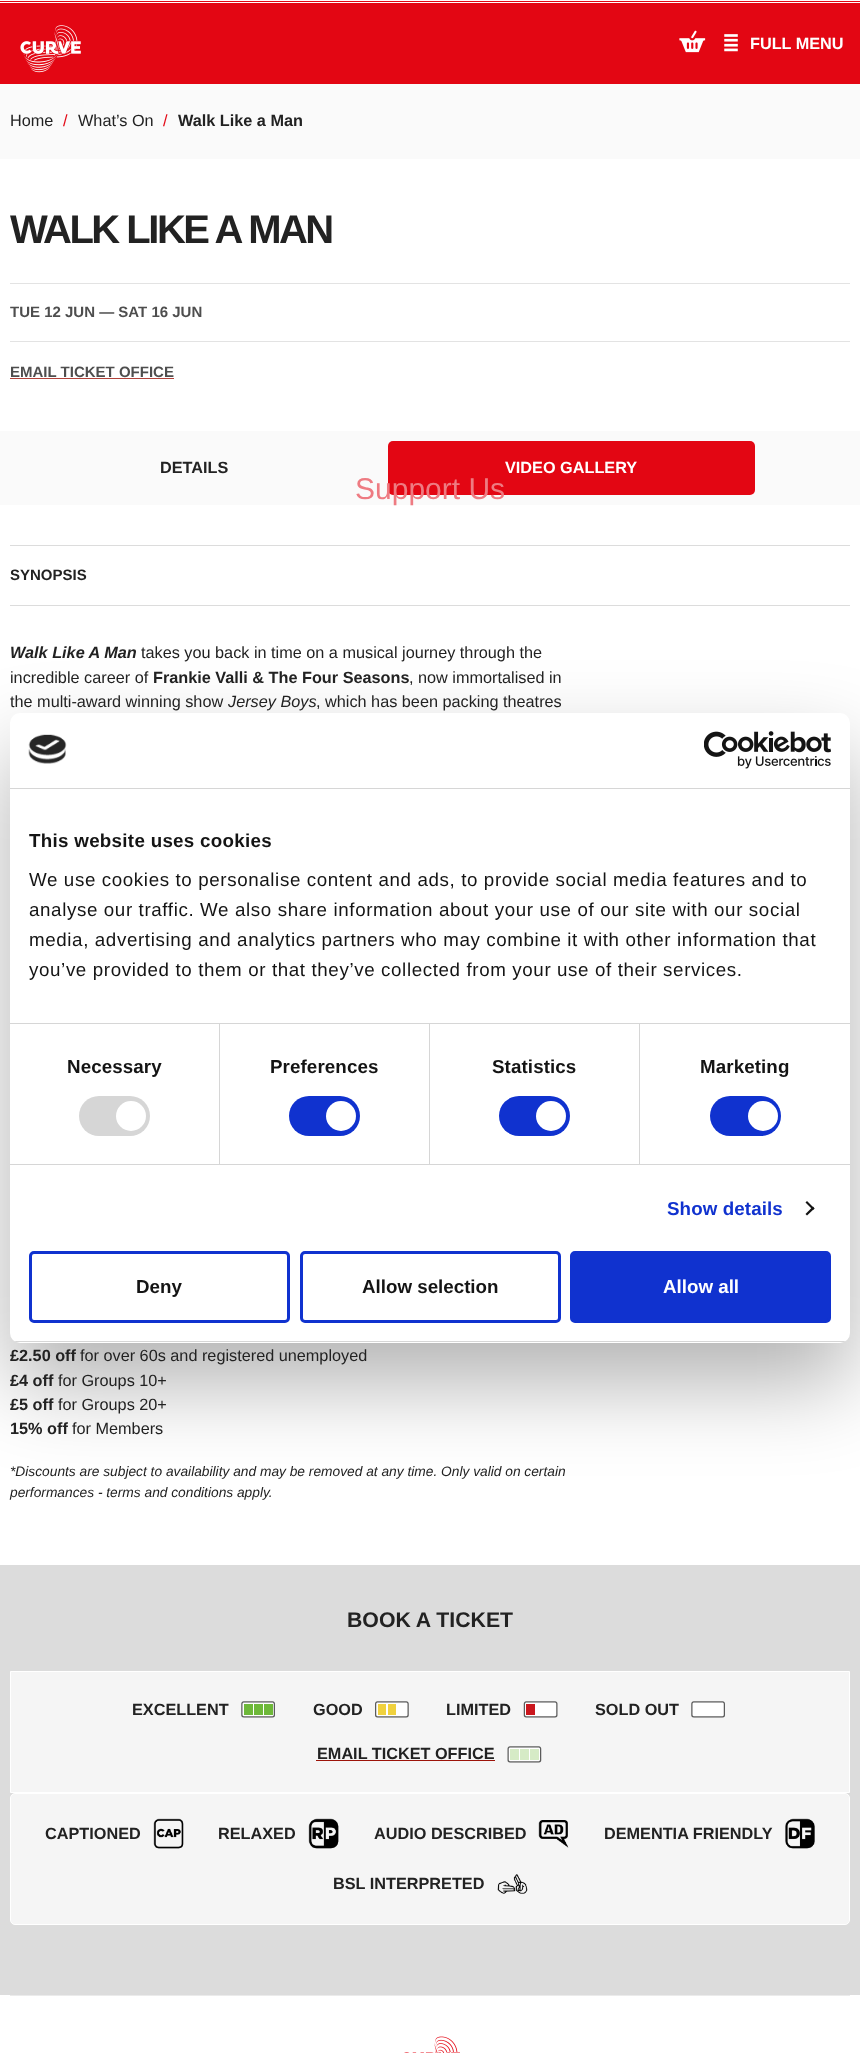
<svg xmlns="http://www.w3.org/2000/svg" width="860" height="2053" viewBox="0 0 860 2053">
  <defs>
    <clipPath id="clip1"><rect x="10" y="713" width="840" height="630" rx="10"/></clipPath>
  </defs>
  <rect width="100%" height="100%" fill="#fff"/>
  <path d="M0 84h860v75H0z" fill="#fafafa"/>
  <path d="M0 3h860v81H0z" fill="#e30613"/>
  <path d="M0 1h860v1H0z" fill="#e30613"/>
  <image x="20" y="25" width="61" height="48" href="img/1.png"/>
  <image x="679" y="30" width="27" height="23" href="img/2.png"/>
  <image x="724" y="34" width="14" height="18" href="img/3.png"/>
  <path d="M10 283h840v1H10z" fill="#e3e3e3"/>
  <path d="M10 341h840v1H10z" fill="#e3e3e3"/>
  <path d="M10 378h164v1H10z" fill="#b0423a"/>
  <path d="M0 431h860v74H0z" fill="#fafafa"/>
  <rect x="388" y="441" width="367" height="54" rx="5" fill="#e30613"/>
  <path d="M10 545h840v1H10z" fill="#dcdcdc"/>
  <path d="M10 605h840v1H10z" fill="#dcdcdc"/>
  <path d="M0 1565h860v430H0z" fill="#dcdcdc"/>
  <path d="M10.5 1671.5h839v121H10.5z" fill="#f5f5f5" stroke="#fff"/>
  <image x="241" y="1701" width="34" height="17" href="img/4.png"/>
  <image x="375" y="1701" width="34" height="17" href="img/5.png"/>
  <image x="523" y="1701" width="35" height="17" href="img/6.png"/>
  <image x="691" y="1701" width="34" height="17" href="img/7.png"/>
  <path d="M316 1760h179v1H316z" fill="#9c1309"/>
  <image x="507" y="1746" width="35" height="17" href="img/8.png"/>
  <rect x="10.5" y="1793.5" width="839" height="131" rx="4.5" fill="#f5f5f5" stroke="#fff"/>
  <image x="153" y="1818" width="31" height="31" href="img/9.png"/>
  <image x="308" y="1818" width="31" height="31" href="img/10.png"/>
  <image x="538" y="1820" width="31" height="28" href="img/11.png"/>
  <image x="785" y="1818" width="30" height="31" href="img/12.png"/>
  <image x="497" y="1874" width="31" height="20" href="img/13.png"/>
  <rect x="10" y="753" width="840" height="630" rx="10" fill="#0000004d" filter="blur(42.5px)"/>
  <rect x="10" y="713" width="840" height="630" rx="10" fill="#fff"/>
  <path d="M10 788h840v1H10z" fill="#d6d6d6"/>
  <image x="28" y="734" width="39" height="30" href="img/14.png"/>
  <image x="704" y="731" width="127" height="38" href="img/15.png"/>
  <path d="M10 1023h840v1H10z" fill="#d6d6d6"/>
  <path d="M10 1164h840v1H10z" fill="#d6d6d6"/>
  <path d="M219 1024h1v140H219z" fill="#d6d6d6"/>
  <rect x="79" y="1096" width="71" height="40" rx="20" fill="#d6d6d6"/>
  <circle cx="131" cy="1116" r="15" fill="#fff"/>
  <path d="M429 1024h1v140H429z" fill="#d6d6d6"/>
  <rect x="289" y="1096" width="71" height="40" rx="20" fill="#1032cf"/>
  <circle cx="341" cy="1116" r="15" fill="#fff"/>
  <path d="M639 1024h1v140H639z" fill="#d6d6d6"/>
  <rect x="499" y="1096" width="71" height="40" rx="20" fill="#1032cf"/>
  <circle cx="551" cy="1116" r="15" fill="#fff"/>
  <rect x="710" y="1096" width="71" height="40" rx="20" fill="#1032cf"/>
  <circle cx="763" cy="1116" r="15" fill="#fff"/>
  <path d="M807 1201L814.5 1208.5L813 1210L805.5 1202.5Z" fill="#141414"/>
  <path d="M813 1206.5L814.5 1208.5L807 1215.5L805.5 1214Z" fill="#141414"/>
  <g clip-path="url(#clip1)">
    <path d="M10 1341h840v1H10z" fill="#d6d6d6"/>
  </g>
  <rect x="30.5" y="1252.5" width="258" height="69" rx="3.5" fill="none" stroke="#1032cf" stroke-width="3"/>
  <rect x="301.5" y="1252.5" width="258" height="69" rx="3.5" fill="none" stroke="#1032cf" stroke-width="3"/>
  <rect x="571.5" y="1252.5" width="258" height="69" rx="3.5" fill="#1032cf" stroke="#1032cf" stroke-width="3"/>
  <path d="M10 1995h840v1H10z" fill="#ebebeb"/>
  <image x="404" y="2036" width="56" height="17" href="img/16.png"/>
  <text x="10" y="126" font-family="Liberation Sans" font-size="16.25" fill="#222">Home</text>
  <text x="63" y="126" font-family="Liberation Sans" font-size="16.25" fill="#e30613">/</text>
  <text x="78" y="126" font-family="Liberation Sans" font-size="16.25" fill="#222">What’s On</text>
  <text x="163" y="126" font-family="Liberation Sans" font-size="16.25" fill="#e30613">/</text>
  <text x="178" y="126" font-family="Liberation Sans" font-size="16.25" font-weight="bold" fill="#222">Walk Like a Man</text>
  <text x="750" y="49" font-family="Liberation Sans" font-size="16.25" font-weight="bold" fill="#fff">FULL MENU</text>
  <text x="355" y="499" font-family="Liberation Sans" font-size="30" fill="#ee7b82">Support Us</text>
  <text x="10" y="243" font-family="Liberation Sans" font-size="40" font-weight="bold" letter-spacing="-2.5" fill="#222">WALK LIKE A MAN</text>
  <g font-family="Liberation Sans" font-size="15" font-weight="bold" fill="#4e4e4e">
    <text x="10" y="317">TUE 12 JUN — SAT 16 JUN</text>
    <text x="10" y="377">EMAIL TICKET OFFICE</text>
  </g>
  <text x="160" y="473" font-family="Liberation Sans" font-size="16.25" font-weight="bold" fill="#222">DETAILS</text>
  <text x="505" y="473" font-family="Liberation Sans" font-size="16.25" font-weight="bold" fill="#fff">VIDEO GALLERY</text>
  <text x="10" y="580" font-family="Liberation Sans" font-size="15" font-weight="bold" fill="#222">SYNOPSIS</text>
  <text x="10" y="658" font-family="Liberation Sans" font-size="16.25" font-weight="bold" font-style="italic" fill="#222">Walk Like A Man</text>
  <g font-family="Liberation Sans" font-size="16.25" fill="#222">
    <text x="141" y="658">takes you back in time on a musical journey through the</text>
    <text x="10" y="683">incredible career of</text>
  </g>
  <text x="153" y="683" font-family="Liberation Sans" font-size="16.25" font-weight="bold" fill="#222">Frankie Valli &amp; The Four Seasons</text>
  <g font-family="Liberation Sans" font-size="16.25" fill="#222">
    <text x="409" y="683">, now immortalised in</text>
    <text x="10" y="707">the multi-award winning show</text>
  </g>
  <text x="228" y="707" font-family="Liberation Sans" font-size="16.25" font-style="italic" fill="#222">Jersey Boys</text>
  <text x="316" y="707" font-family="Liberation Sans" font-size="16.25" fill="#222">, which has been packing theatres</text>
  <text x="10" y="1361" font-family="Liberation Sans" font-size="16.25" font-weight="bold" fill="#222">£2.50 off</text>
  <text x="80" y="1361" font-family="Liberation Sans" font-size="16.25" fill="#222">for over 60s and registered unemployed</text>
  <text x="10" y="1386" font-family="Liberation Sans" font-size="16.25" font-weight="bold" fill="#222">£4 off</text>
  <text x="58" y="1386" font-family="Liberation Sans" font-size="16.25" fill="#222">for Groups 10+</text>
  <text x="10" y="1410" font-family="Liberation Sans" font-size="16.25" font-weight="bold" fill="#222">£5 off</text>
  <text x="58" y="1410" font-family="Liberation Sans" font-size="16.25" fill="#222">for Groups 20+</text>
  <text x="10" y="1434" font-family="Liberation Sans" font-size="16.25" font-weight="bold" fill="#222">15% off</text>
  <text x="72" y="1434" font-family="Liberation Sans" font-size="16.25" fill="#222">for Members</text>
  <g font-family="Liberation Sans" font-size="13.75" font-style="italic" fill="#222">
    <text x="10" y="1476">*Discounts are subject to availability and may be removed at any time. Only valid on certain</text>
    <text x="10" y="1497">performances - terms and conditions apply.</text>
  </g>
  <text x="347" y="1627" font-family="Liberation Sans" font-size="21.25" font-weight="bold" fill="#222">BOOK A TICKET</text>
  <g font-family="Liberation Sans" font-size="16.25" font-weight="bold" fill="#222">
    <text x="132" y="1715">EXCELLENT</text>
    <text x="313" y="1715">GOOD</text>
    <text x="446" y="1715">LIMITED</text>
    <text x="595" y="1715">SOLD OUT</text>
    <text x="317" y="1759">EMAIL TICKET OFFICE</text>
    <text x="45" y="1839">CAPTIONED</text>
    <text x="218" y="1839">RELAXED</text>
    <text x="374" y="1839">AUDIO DESCRIBED</text>
    <text x="604" y="1839">DEMENTIA FRIENDLY</text>
    <text x="333" y="1889">BSL INTERPRETED</text>
  </g>
  <text x="29" y="847" font-family="Liberation Sans" font-size="18.75" font-weight="bold" letter-spacing="0.3" fill="#141414">This website uses cookies</text>
  <g font-family="Liberation Sans" font-size="18.75" letter-spacing="0.62" fill="#141414">
    <text x="29" y="886">We use cookies to personalise content and ads, to provide social media features and to</text>
    <text x="29" y="916">analyse our traffic. We also share information about your use of our site with our social</text>
    <text x="29" y="946">media, advertising and analytics partners who may combine it with other information that</text>
    <text x="29" y="976">you’ve provided to them or that they’ve collected from your use of their services.</text>
  </g>
  <g font-family="Liberation Sans" font-size="18.75" font-weight="bold" letter-spacing="0.1" fill="#141414">
    <text x="67" y="1073">Necessary</text>
    <text x="270" y="1073">Preferences</text>
    <text x="492" y="1073">Statistics</text>
    <text x="700" y="1073">Marketing</text>
  </g>
  <text x="667" y="1215" font-family="Liberation Sans" font-size="18.75" font-weight="bold" letter-spacing="0.1" fill="#1032cf">Show details</text>
  <g font-family="Liberation Sans" font-size="18.75" font-weight="bold" fill="#141414">
    <text x="136" y="1293">Deny</text>
    <text x="362" y="1293">Allow selection</text>
  </g>
  <text x="663" y="1293" font-family="Liberation Sans" font-size="18.75" font-weight="bold" fill="#fff">Allow all</text>
</svg>
